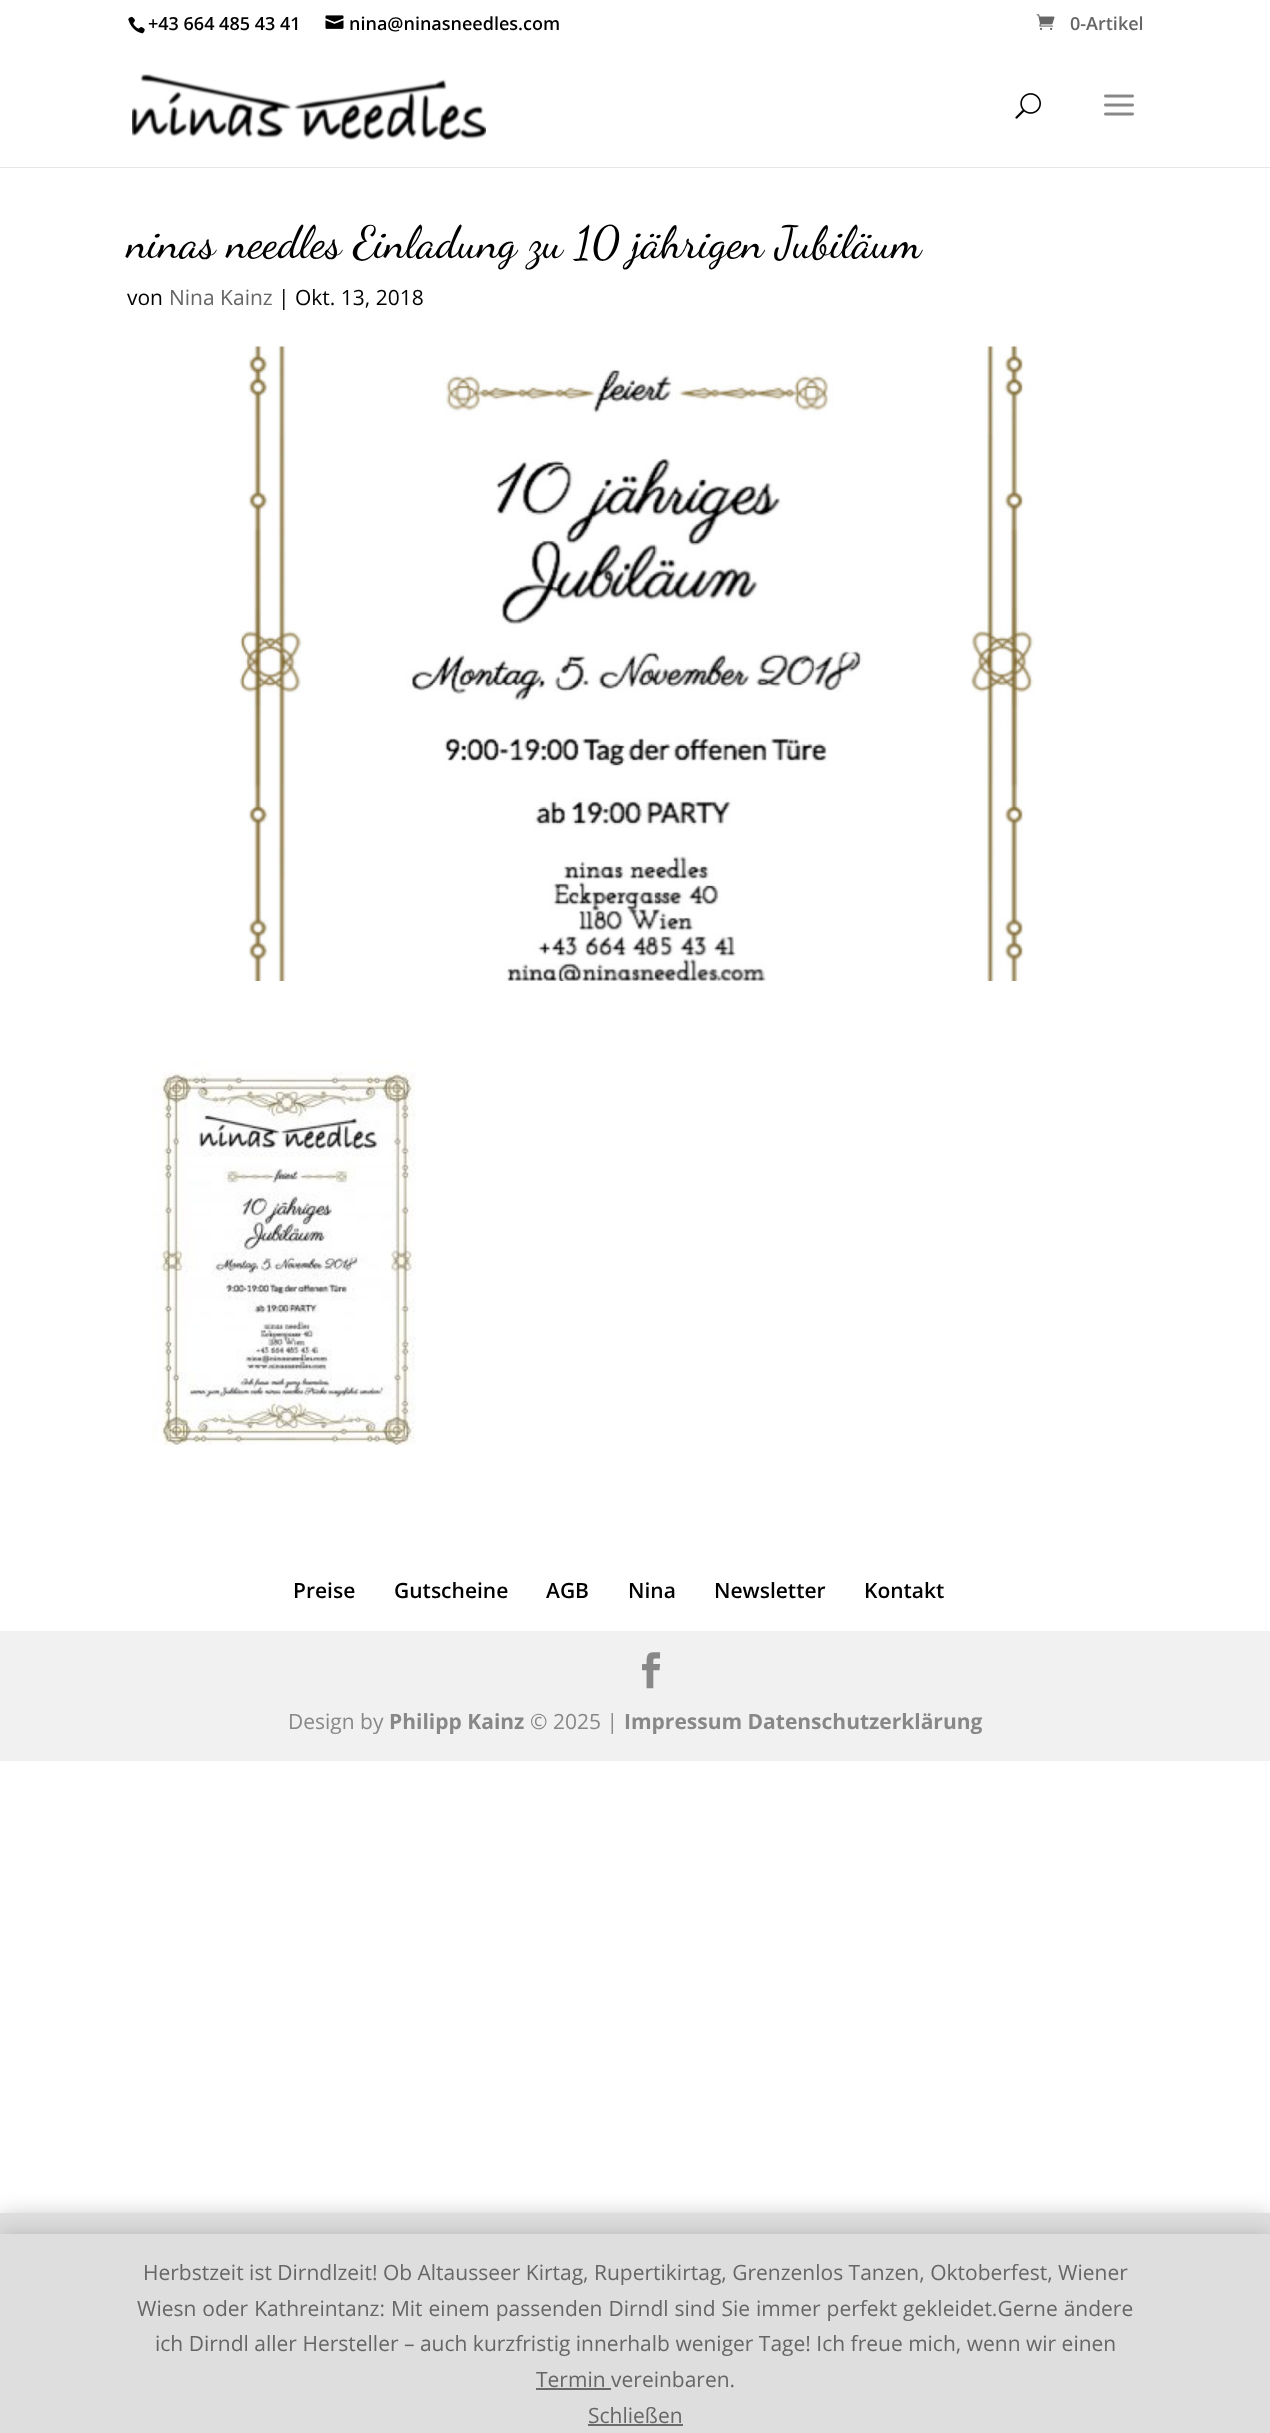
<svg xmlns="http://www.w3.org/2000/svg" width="1270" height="2433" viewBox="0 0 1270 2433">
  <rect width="100%" height="100%" fill="#fff"/>
  <image x="128" y="16" width="17" height="18" href="img/1.png"/>
  <image x="325" y="15" width="19" height="14" href="img/2.png"/>
  <image x="1036" y="14" width="19" height="16" href="img/3.png"/>
  <path d="M0 166V168H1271V48H1270V166Z" fill="#e6e6e6"/>
  <path d="M0 166h1270v1H0z" fill="#fff"/>
  <image x="132" y="74" width="354" height="66" href="img/4.png"/>
  <image x="1015" y="93" width="26" height="26" href="img/5.png"/>
  <image x="1104" y="94" width="30" height="22" href="img/6.png"/>
  <image x="239" y="346" width="796" height="635" href="img/7.png"/>
  <image x="152" y="1061" width="264" height="385" href="img/8.png"/>
  <path d="M0 1631h1270v130H0z" fill="#f1f1f1"/>
  <image x="642" y="1652" width="19" height="37" href="img/9.png"/>
  <path d="M0 2214h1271v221H0z" fill="#00000033" filter="blur(10.5px)"/>
  <path d="M0 2213h1270v21H0z" fill="#dedede"/>
  <path d="M0 2235h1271v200H0z" fill="#00000033" filter="blur(10.5px)"/>
  <path d="M0 2234h1270v199H0z" fill="#dedede"/>
  <path d="M536 2388h75v2H536z" fill="#6b6b6b"/>
  <path d="M588 2424h95v2H588z" fill="#6b6b6b"/>
  <g font-family="Open Sans" font-size="18" font-weight="600" fill="#000">
    <text x="148" y="30">+43 664 485 43 41</text>
    <text x="349" y="30">nina@ninasneedles.com</text>
  </g>
  <text x="1070" y="30" font-family="Open Sans" font-size="18" font-weight="600" fill="#666">0-Artikel</text>
  <text x="127" y="257" font-family="Dancing Script" font-size="45" font-weight="500" fill="#000">ninas needles Einladung zu 10 jährigen Jubiläum</text>
  <text x="127" y="305" font-family="Open Sans" font-size="21" fill="#000">von</text>
  <text x="169" y="305" font-family="Open Sans" font-size="21" fill="#666">Nina Kainz</text>
  <text x="278" y="305" font-family="Open Sans" font-size="21" fill="#000">| Okt. 13, 2018</text>
  <g font-family="Open Sans" font-size="21" font-weight="600" fill="#000">
    <text x="293" y="1598">Preise</text>
    <text x="394" y="1598">Gutscheine</text>
    <text x="546" y="1598">AGB</text>
    <text x="628" y="1598">Nina</text>
    <text x="714" y="1598">Newsletter</text>
    <text x="864" y="1598">Kontakt</text>
  </g>
  <text x="288" y="1729" font-family="Open Sans" font-size="21" fill="#888">Design by</text>
  <text x="389" y="1729" font-family="Open Sans" font-size="21" font-weight="bold" fill="#888">Philipp Kainz</text>
  <text x="530" y="1729" font-family="Open Sans" font-size="21" fill="#888">© 2025 |</text>
  <text x="624" y="1729" font-family="Open Sans" font-size="21" font-weight="bold" fill="#888">Impressum Datenschutzerklärung</text>
  <g font-family="Open Sans" font-size="21" fill="#666">
    <text x="143" y="2280">Herbstzeit ist Dirndlzeit! Ob Altausseer Kirtag, Rupertikirtag, Grenzenlos Tanzen, Oktoberfest, Wiener</text>
    <text x="137" y="2316" word-spacing="0.5">Wiesn oder Kathreintanz: Mit einem passenden Dirndl sind Sie immer perfekt gekleidet.Gerne ändere</text>
    <text x="155" y="2351">ich Dirndl aller Hersteller – auch kurzfristig innerhalb weniger Tage! Ich freue mich, wenn wir einen</text>
    <text x="536" y="2387">Termin vereinbaren.</text>
    <text x="588" y="2423">Schließen</text>
  </g>
</svg>
